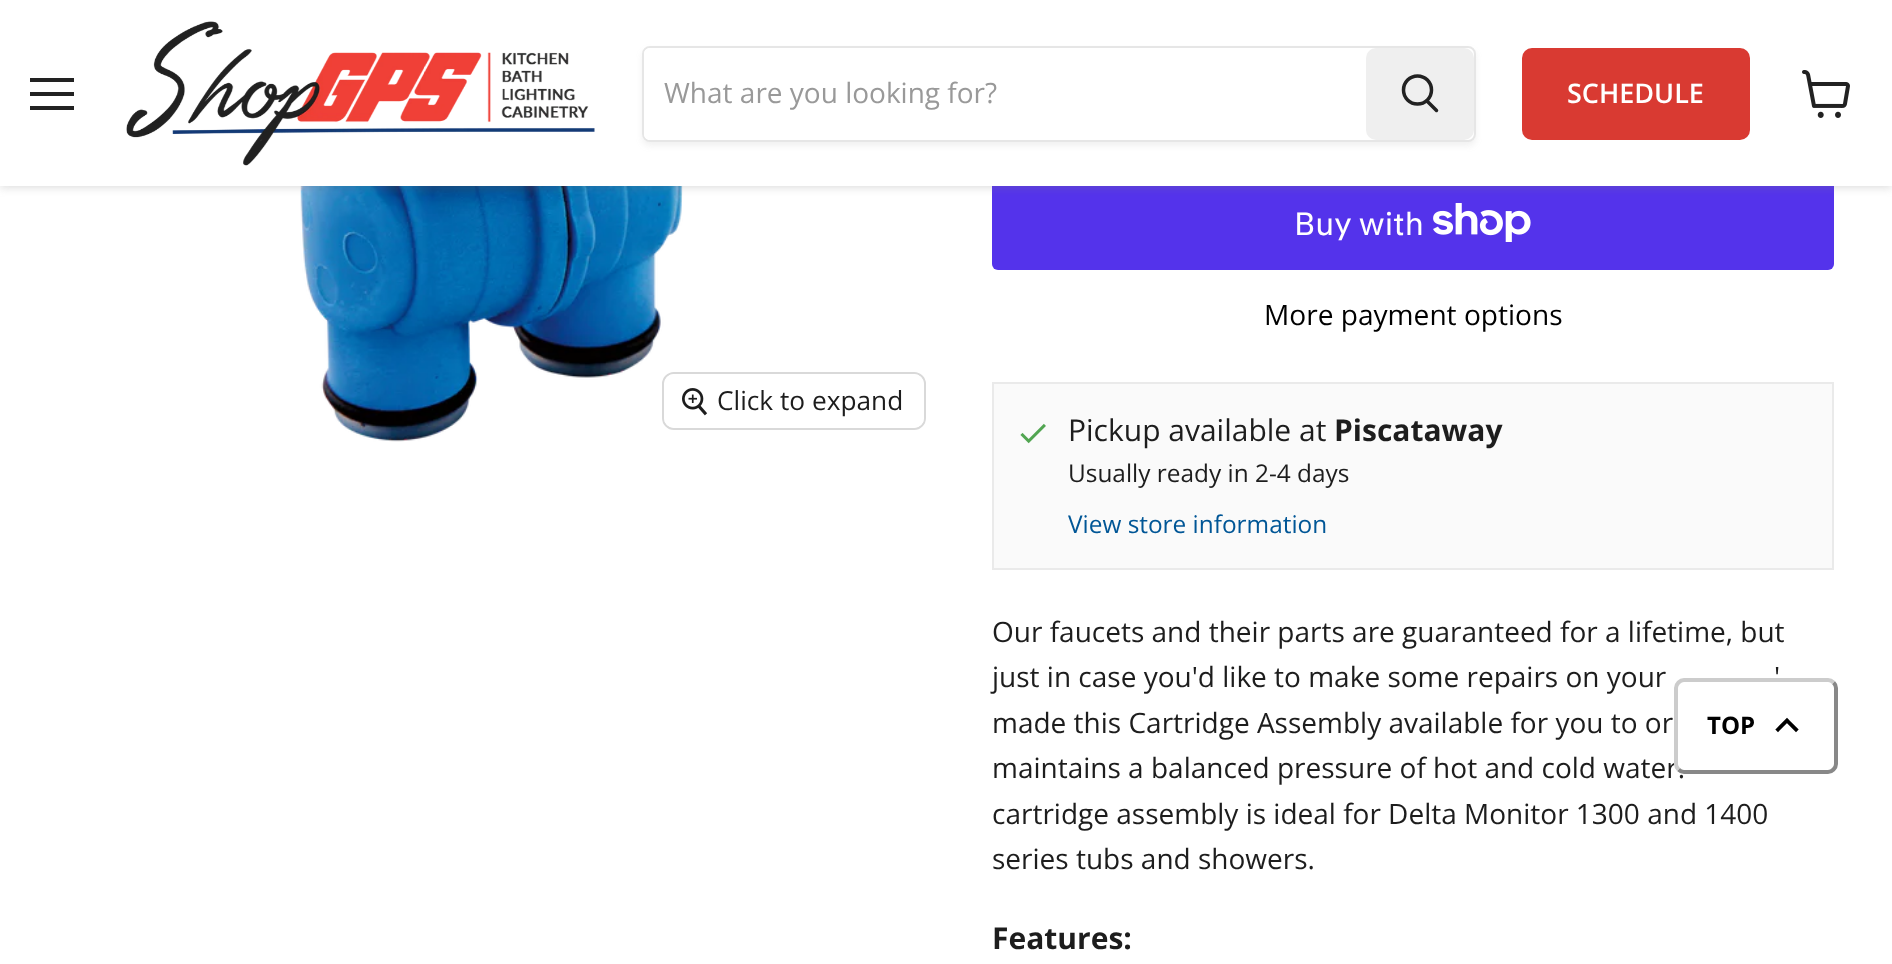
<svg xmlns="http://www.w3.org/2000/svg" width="1892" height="964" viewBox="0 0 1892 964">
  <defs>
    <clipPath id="clip1"><path d="M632 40H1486V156H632ZM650 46H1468C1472.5 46 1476 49.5 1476 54V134C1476 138.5 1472.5 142 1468 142H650C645.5 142 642 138.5 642 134V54C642 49.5 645.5 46 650 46Z" clip-rule="evenodd"/></clipPath>
  </defs>
  <rect width="100%" height="100%" fill="#fff"/>
  <image x="300" y="186" width="383" height="256" href="img/3.png"/>
  <rect x="992" y="174" width="842" height="96" rx="6" fill="#5433eb"/>
  <path d="M0 2h1892v186H0z" fill="#80808040" filter="blur(4px)"/>
  <path d="M0 0h1892v186H0z" fill="#fff"/>
  <path d="M30 78h44v4H30z" fill="#222"/>
  <path d="M30 92h44v4H30z" fill="#222"/>
  <path d="M30 106h44v4H30z" fill="#222"/>
  <image x="126" y="21" width="469" height="145" href="img/1.png"/>
  <g clip-path="url(#clip1)">
    <rect x="642" y="50" width="834" height="96" rx="8" fill="#8080801c" filter="blur(3px)"/>
  </g>
  <rect x="643" y="47" width="832" height="94" rx="7" fill="none" stroke="#80808033" stroke-width="2"/>
  <path d="M650 48H1366V140H650C646.5 140 644 137.5 644 134V54C644 50.5 646.5 48 650 48Z" fill="#fff"/>
  <rect x="1366" y="48" width="108" height="92" rx="10" fill="#efefef"/>
  <path d="M1436.5 110.5L1427 101" fill="none" stroke="#222" stroke-width="3.5" stroke-linecap="round"/>
  <circle cx="1417.5" cy="90" r="14" fill="none" stroke="#222" stroke-width="3.5"/>
  <rect x="1522" y="48" width="228" height="92" rx="10" fill="#d93a32"/>
  <image x="1802" y="70" width="48" height="48" href="img/2.png"/>
  <rect x="663" y="373" width="262" height="56" rx="11" fill="none" stroke="#d9d9d9" stroke-width="2"/>
  <rect x="664" y="374" width="260" height="54" rx="10" fill="#ffffffe6"/>
  <image x="682" y="388" width="26" height="28" href="img/4.png"/>
  <image x="1433" y="203" width="98" height="39" href="img/5.png"/>
  <path d="M993 383h840v186H993z" fill="#fafafa" stroke="#eaeaea" stroke-width="2"/>
  <image x="1020" y="423" width="26" height="21" href="img/6.png"/>
  <text x="664" y="103" font-family="Open Sans" font-size="28" fill="#999">What are you looking for?</text>
  <text x="1567" y="103" font-family="Open Sans" font-size="27" font-weight="600" fill="#fff">SCHEDULE</text>
  <text x="717" y="410" font-family="Open Sans" font-size="26.25" fill="#1d1d1d">Click to expand</text>
  <text x="1294" y="235" font-family="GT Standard" font-size="32" fill="#fff">Buy with</text>
  <text x="1264" y="325" font-family="Open Sans" font-size="28.1" fill="#000">More payment options</text>
  <text x="1068" y="441" font-family="Open Sans" font-size="30" fill="#1d1d1d">Pickup available at</text>
  <text x="1334" y="441" font-family="Open Sans" font-size="30" font-weight="bold" fill="#1d1d1d">Piscataway</text>
  <text x="1068" y="482" font-family="Open Sans" font-size="24.4" fill="#1d1d1d">Usually ready in 2-4 days</text>
  <text x="1068" y="533" font-family="Open Sans" font-size="24.4" fill="#005696">View store information</text>
  <g font-family="Open Sans" font-size="28" fill="#1d1d1d">
    <text x="992" y="642">Our faucets and their parts are guaranteed for a lifetime, but</text>
    <text x="992" y="687">just in case you'd like to make some repairs on your</text>
    <text x="1774" y="687">'</text>
    <text x="992" y="733">made this Cartridge Assembly available for you to or</text>
    <text x="992" y="778">maintains a balanced pressure of hot and cold water.</text>
    <text x="992" y="824">cartridge assembly is ideal for Delta Monitor 1300 and 1400</text>
    <text x="992" y="869">series tubs and showers.</text>
  </g>
  <text x="992" y="949" font-family="Open Sans" font-size="30" font-weight="bold" fill="#1d1d1d">Features:</text>
  <rect x="1674" y="678" width="164" height="96" rx="10" fill="#fff"/>
  <path d="M1833.5 682.5C1835 684 1836 686 1836 688V764C1836 766 1835 768 1833.5 769.5C1832 771 1830 772 1828 772H1684C1682 772 1680 771 1678.5 769.5" fill="none" stroke="#888" stroke-width="4"/>
  <path d="M1678.5 769.5C1677 768 1676 766 1676 764V688C1676 686 1677 684 1678.5 682.5C1680 681 1682 680 1684 680H1828C1830 680 1832 681 1833.5 682.5" fill="none" stroke="#ccc" stroke-width="4"/>
  <text x="1707" y="734" font-family="Open Sans" font-size="24" font-weight="bold" fill="#000">TOP</text>
  <path d="M1787 720.5L1778 729.5M1787 720.5L1796 729.5" fill="none" stroke="#000" stroke-width="3.8" stroke-linecap="square"/>
</svg>
